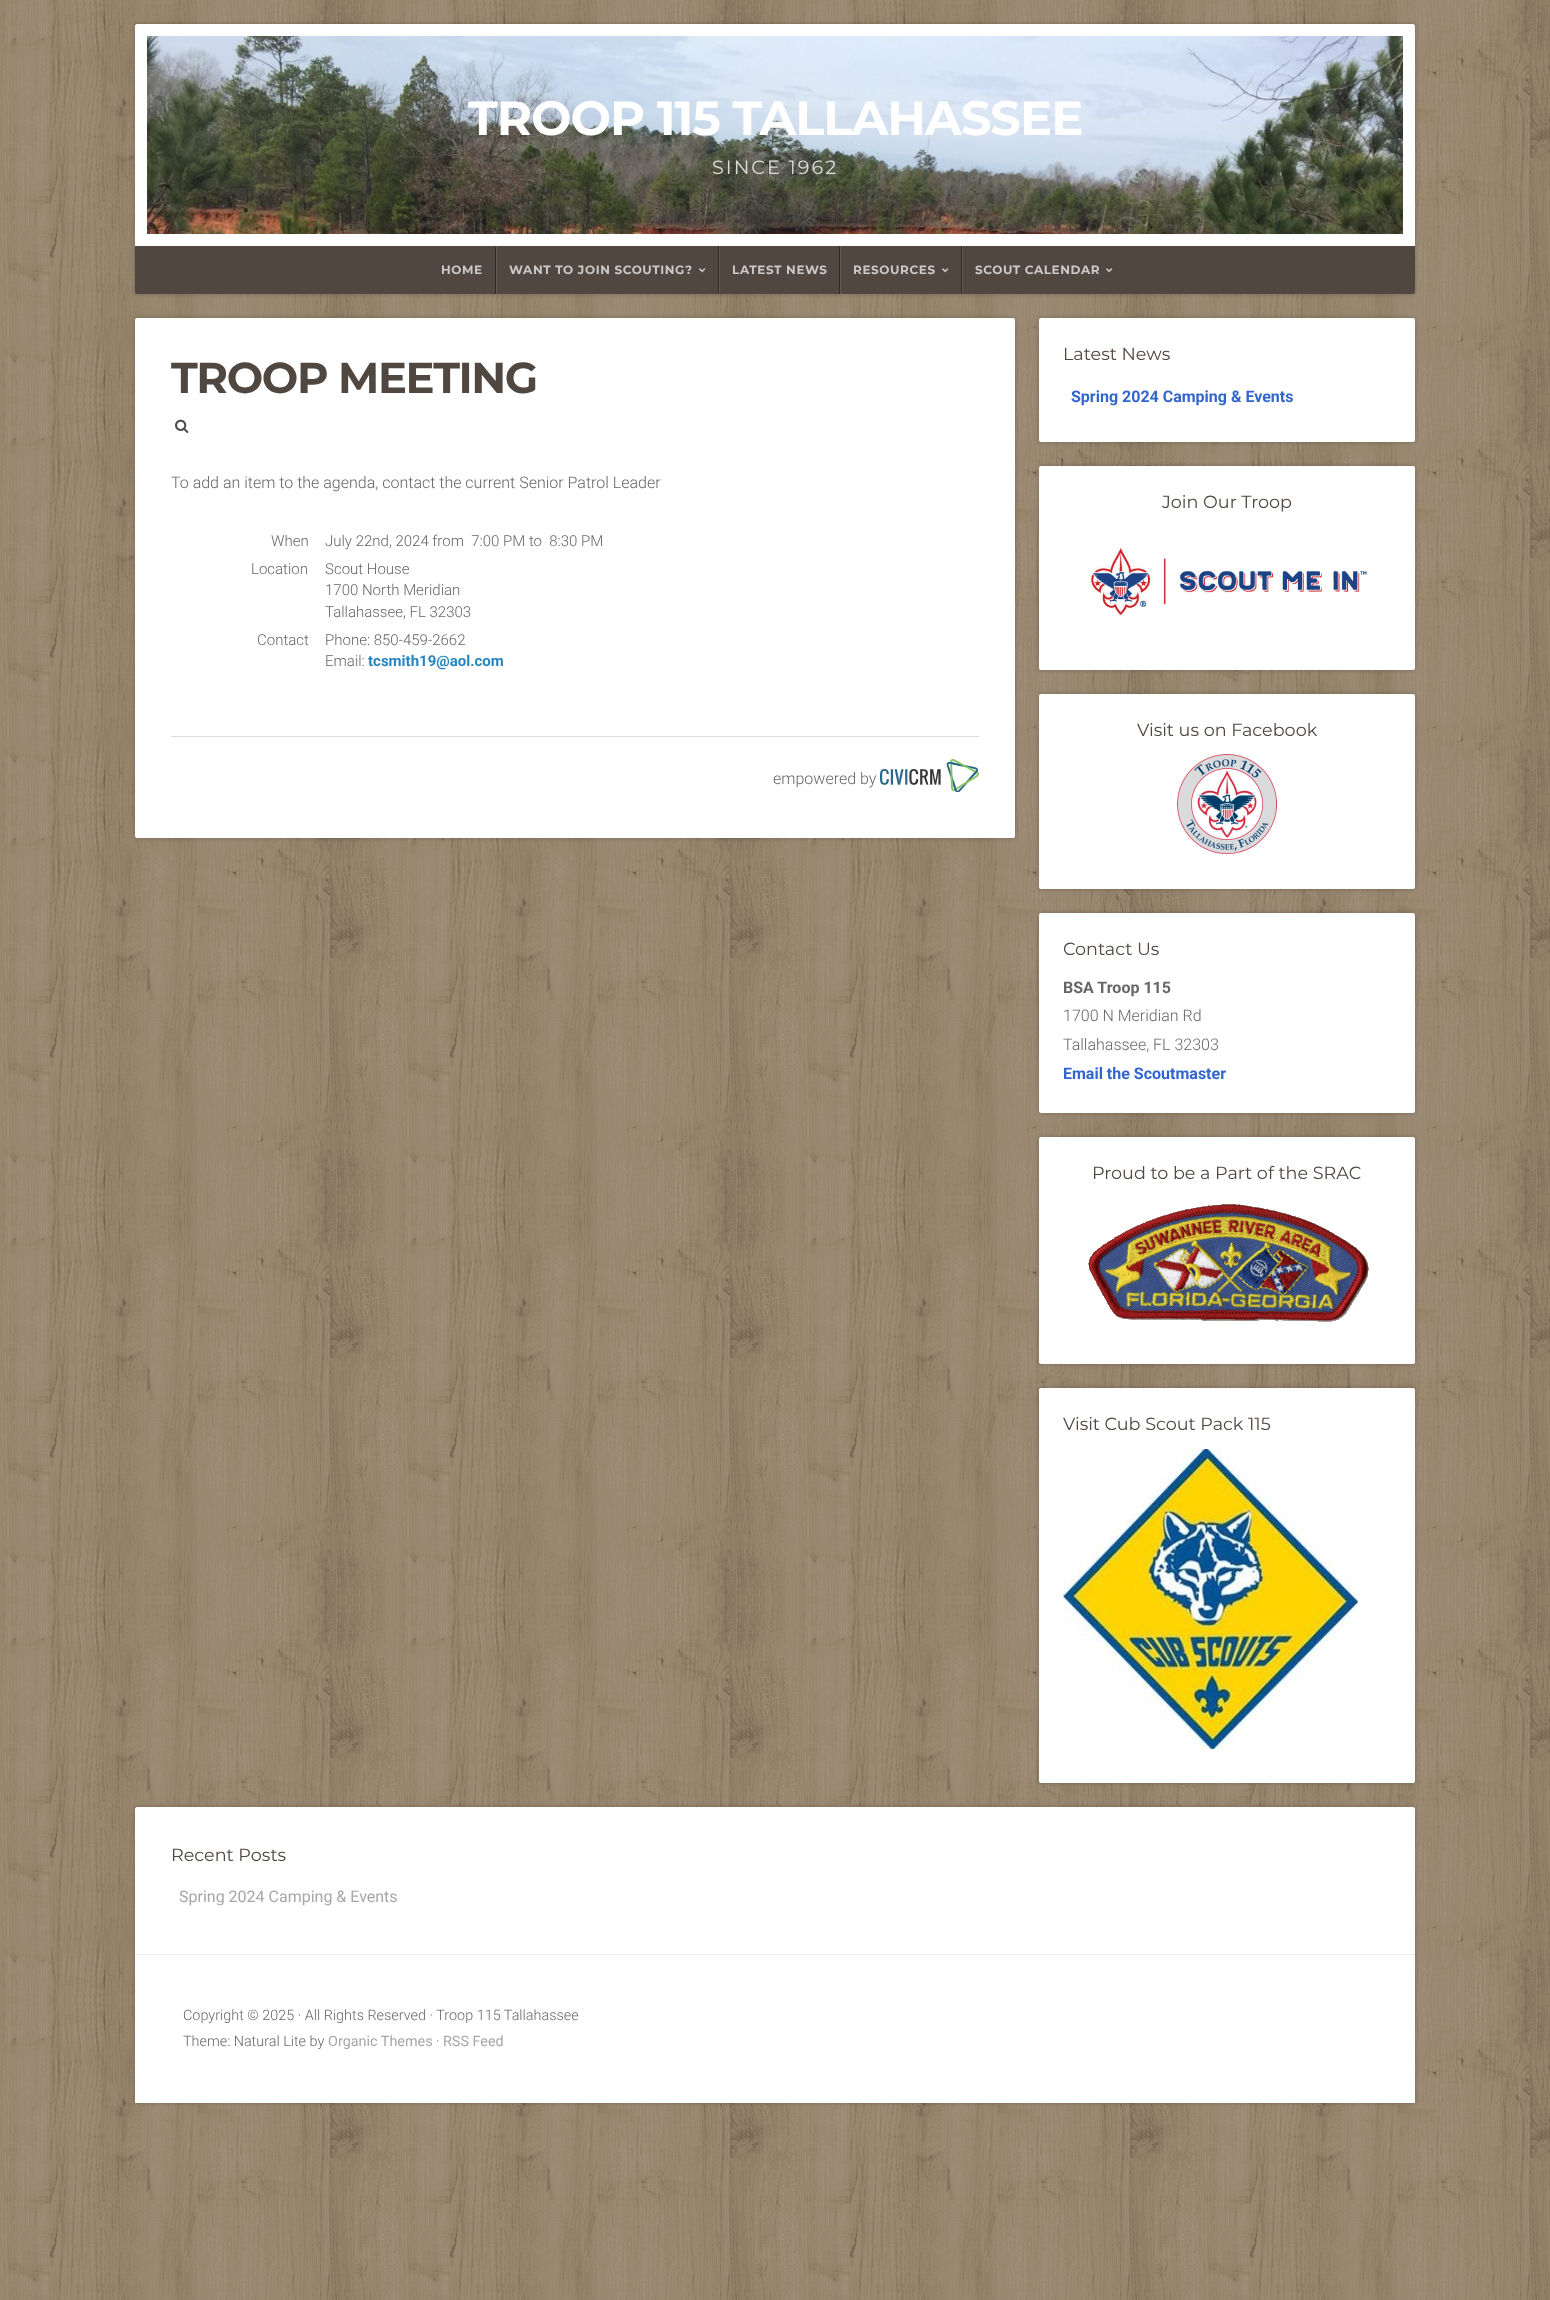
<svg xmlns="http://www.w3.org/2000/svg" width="1550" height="2300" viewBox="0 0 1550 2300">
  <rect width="100%" height="100%" fill="#fff"/>
  <image x="0" y="0" width="1550" height="2300" href="img/1.png"/>
  <rect x="135" y="24" width="1280" height="270" rx="2" fill="#0000003d" filter="blur(2px)"/>
  <path d="M137 24H1413C1414 24 1415 25 1415 26V246H135V26C135 25 136 24 137 24Z" fill="#fff"/>
  <image x="147" y="36" width="1256" height="198" href="img/2.png"/>
  <path d="M135 246H1415V292C1415 293 1414 294 1413 294H137C136 294 135 293 135 292Z" fill="#504741"/>
  <path d="M495 247h1v47H495z" fill="#302b27"/>
  <path d="M718 246h1v48H718z" fill="#302b27"/>
  <path d="M496 246h1v48H496z" fill="#625954"/>
  <image x="699" y="268" width="7" height="5" href="img/3.png"/>
  <path d="M839 246h1v48H839z" fill="#302b27"/>
  <path d="M719 246h1v48H719z" fill="#625954"/>
  <path d="M961 246h1v48H961z" fill="#302b27"/>
  <path d="M840 246h1v48H840z" fill="#625954"/>
  <image x="942" y="268" width="7" height="5" href="img/3.png"/>
  <path d="M962 246h1v48H962z" fill="#625954"/>
  <image x="1106" y="268" width="7" height="5" href="img/3.png"/>
  <rect x="135" y="318" width="880" height="520" rx="2" fill="#0000003d" filter="blur(2px)"/>
  <rect x="135" y="318" width="880" height="520" rx="2" fill="#fff"/>
  <image x="175" y="419" width="14" height="14" href="img/4.png"/>
  <path d="M171 736h808v1H171z" fill="#ddd"/>
  <image x="880" y="759" width="99" height="33" href="img/5.png"/>
  <rect x="1039" y="318" width="376" height="124" rx="2" fill="#0000003d" filter="blur(2px)"/>
  <rect x="1039" y="318" width="376" height="124" rx="2" fill="#fff"/>
  <rect x="1039" y="466" width="376" height="204" rx="2" fill="#0000003d" filter="blur(2px)"/>
  <rect x="1039" y="466" width="376" height="204" rx="2" fill="#fff"/>
  <image x="1090" y="543" width="281" height="75" href="img/6.png"/>
  <rect x="1039" y="694" width="376" height="195" rx="2" fill="#0000003d" filter="blur(2px)"/>
  <rect x="1039" y="694" width="376" height="195" rx="2" fill="#fff"/>
  <image x="1177" y="754" width="100" height="101" href="img/7.png"/>
  <rect x="1039" y="913" width="376" height="200" rx="2" fill="#0000003d" filter="blur(2px)"/>
  <rect x="1039" y="913" width="376" height="200" rx="2" fill="#fff"/>
  <rect x="1039" y="1137" width="376" height="227" rx="2" fill="#0000003d" filter="blur(2px)"/>
  <rect x="1039" y="1137" width="376" height="227" rx="2" fill="#fff"/>
  <image x="1088" y="1204" width="281" height="118" href="img/8.png"/>
  <rect x="1039" y="1388" width="376" height="395" rx="2" fill="#0000003d" filter="blur(2px)"/>
  <rect x="1039" y="1388" width="376" height="395" rx="2" fill="#fff"/>
  <image x="1063" y="1449" width="296" height="300" href="img/9.png"/>
  <rect x="135" y="1807" width="1280" height="296" rx="2" fill="#0000003d" filter="blur(2px)"/>
  <path d="M137 1807H1413C1414 1807 1415 1808 1415 1809V2103H135V1809C135 1808 136 1807 137 1807Z" fill="#fff"/>
  <path d="M135 1954h1280v1H135z" fill="#ebebeb"/>
  <text x="468" y="135" font-family="Montserrat" font-size="48" font-weight="bold" letter-spacing="-1" fill="#fff">TROOP 115 TALLAHASSEE</text>
  <text x="712" y="174" font-family="Montserrat" font-size="19.25" letter-spacing="2" fill="#dddddb">SINCE 1962</text>
  <g font-family="Montserrat" font-size="12" font-weight="bold" letter-spacing="0.6" fill="#cbc8c6">
    <text x="441" y="274">HOME</text>
    <text x="509" y="274">WANT TO JOIN SCOUTING?</text>
    <text x="732" y="274">LATEST NEWS</text>
    <text x="853" y="274">RESOURCES</text>
    <text x="975" y="274">SCOUT CALENDAR</text>
  </g>
  <text x="171" y="393" font-family="Montserrat" font-size="43.25" font-weight="bold" letter-spacing="-1.4" fill="#504741">TROOP MEETING</text>
  <text x="171" y="488" font-family="Roboto" font-size="16" font-weight="300" fill="#666">To add an item to the agenda, contact the current Senior Patrol Leader</text>
  <g font-family="Roboto" font-size="15" font-weight="300" fill="#666">
    <text x="271" y="546">When</text>
    <text x="325" y="546" xml:space="preserve">July 22nd, 2024 from  7:00 PM to  8:30 PM</text>
    <text x="251" y="574">Location</text>
    <text x="325" y="574">Scout House</text>
    <text x="325" y="595">1700 North Meridian</text>
    <text x="325" y="617">Tallahassee, FL 32303</text>
    <text x="257" y="645">Contact</text>
    <text x="325" y="645">Phone: 850-459-2662</text>
    <text x="325" y="666">Email:</text>
  </g>
  <text x="368" y="666" font-family="Roboto" font-size="15" font-weight="bold" fill="#2786c2">tcsmith19@aol.com</text>
  <text x="773" y="784" font-family="Roboto" font-size="16" font-weight="300" fill="#666">empowered by</text>
  <text x="1063" y="360" font-family="Montserrat" font-size="17.6" fill="#504741">Latest News</text>
  <text x="1071" y="402" font-family="Roboto" font-size="16" font-weight="bold" fill="#36c">Spring 2024 Camping &amp; Events</text>
  <g font-family="Montserrat" font-size="17.6" fill="#504741">
    <text x="1162" y="508">Join Our Troop</text>
    <text x="1137" y="736">Visit us on Facebook</text>
    <text x="1063" y="955">Contact Us</text>
  </g>
  <text x="1063" y="993" font-family="Roboto" font-size="16" font-weight="bold" fill="#666">BSA Troop 115</text>
  <g font-family="Roboto" font-size="16" font-weight="300" fill="#666">
    <text x="1063" y="1021">1700 N Meridian Rd</text>
    <text x="1063" y="1050">Tallahassee, FL 32303</text>
  </g>
  <text x="1063" y="1079" font-family="Roboto" font-size="16" font-weight="bold" fill="#36c">Email the Scoutmaster</text>
  <g font-family="Montserrat" font-size="17.6" fill="#504741">
    <text x="1092" y="1179">Proud to be a Part of the SRAC</text>
    <text x="1063" y="1430">Visit Cub Scout Pack 115</text>
    <text x="171" y="1861">Recent Posts</text>
  </g>
  <text x="179" y="1902" font-family="Roboto" font-size="16" fill="#a6a6a6">Spring 2024 Camping &amp; Events</text>
  <g font-family="Roboto" font-size="14.4" font-weight="300" fill="#666">
    <text x="183" y="2020">Copyright © 2025 · All Rights Reserved · Troop 115 Tallahassee</text>
    <text x="183" y="2046">Theme: Natural Lite by</text>
  </g>
  <text x="328" y="2046" font-family="Roboto" font-size="14.4" fill="#a6a6a6">Organic Themes</text>
  <text x="436" y="2046" font-family="Roboto" font-size="14.4" font-weight="300" fill="#666">·</text>
  <text x="443" y="2046" font-family="Roboto" font-size="14.4" fill="#a6a6a6">RSS Feed</text>
</svg>
